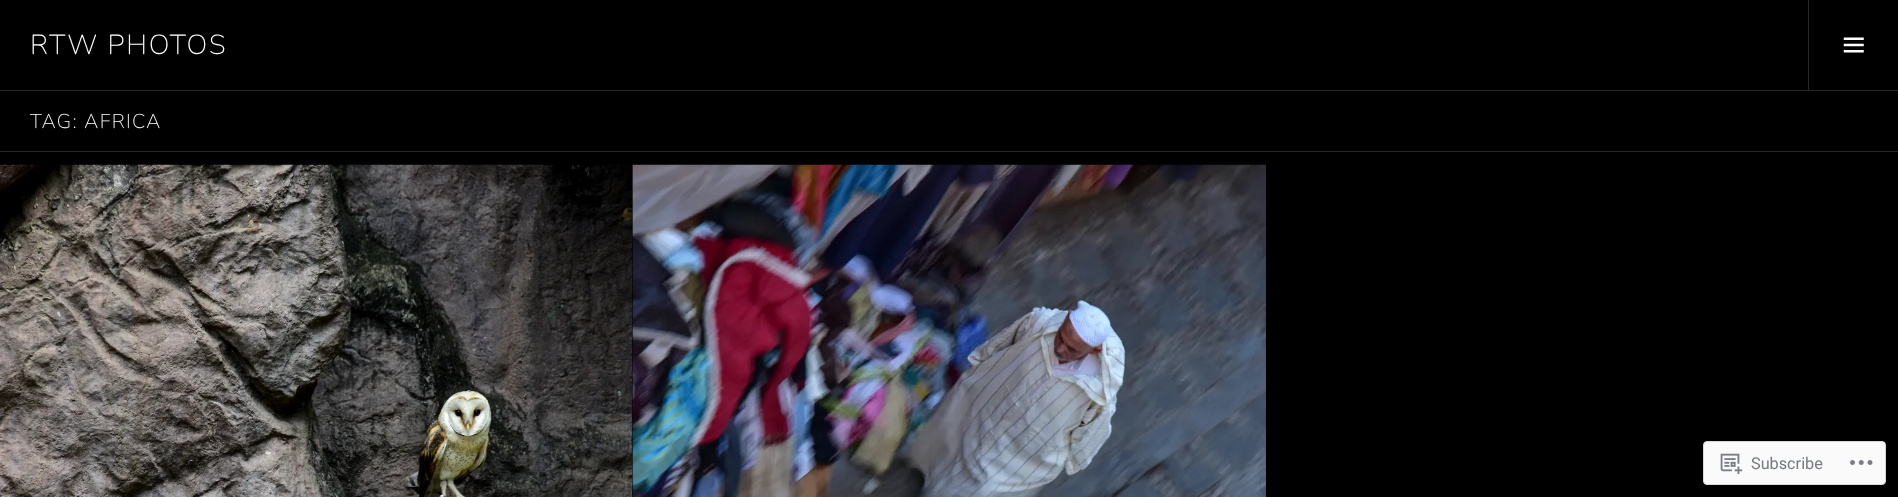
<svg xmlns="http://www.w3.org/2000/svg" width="1898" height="497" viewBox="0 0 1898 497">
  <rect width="100%" height="100%" fill="#000"/>
  <path d="M0 90h1898v1H0z" fill="#262626"/>
  <path d="M1808 0h1v90H1808z" fill="#262626"/>
  <image x="1843" y="37" width="21" height="16" href="img/1.png"/>
  <path d="M0 151h1898v1H0z" fill="#262626"/>
  <image x="0" y="163" width="633" height="334" href="img/2.png"/>
  <image x="632" y="163" width="634" height="334" href="img/3.png"/>
  <rect x="1703.5" y="441.5" width="182" height="43" rx="3.5" fill="#fafafa" stroke="#d8d8da"/>
  <image x="1720" y="453" width="23" height="22" href="img/4.png"/>
  <image x="1850" y="460" width="23" height="5" href="img/5.png"/>
  <text x="30" y="54" font-family="Nunito" font-size="27.5" font-weight="200" letter-spacing="1.75" fill="#fff">RTW PHOTOS</text>
  <text x="30" y="128" font-family="Nunito" font-size="20" font-weight="200" letter-spacing="1.25" fill="#fff">TAG: AFRICA</text>
  <text x="1751" y="469" font-family="Roboto" font-size="16.25" fill="#767a7f">Subscribe</text>
</svg>
